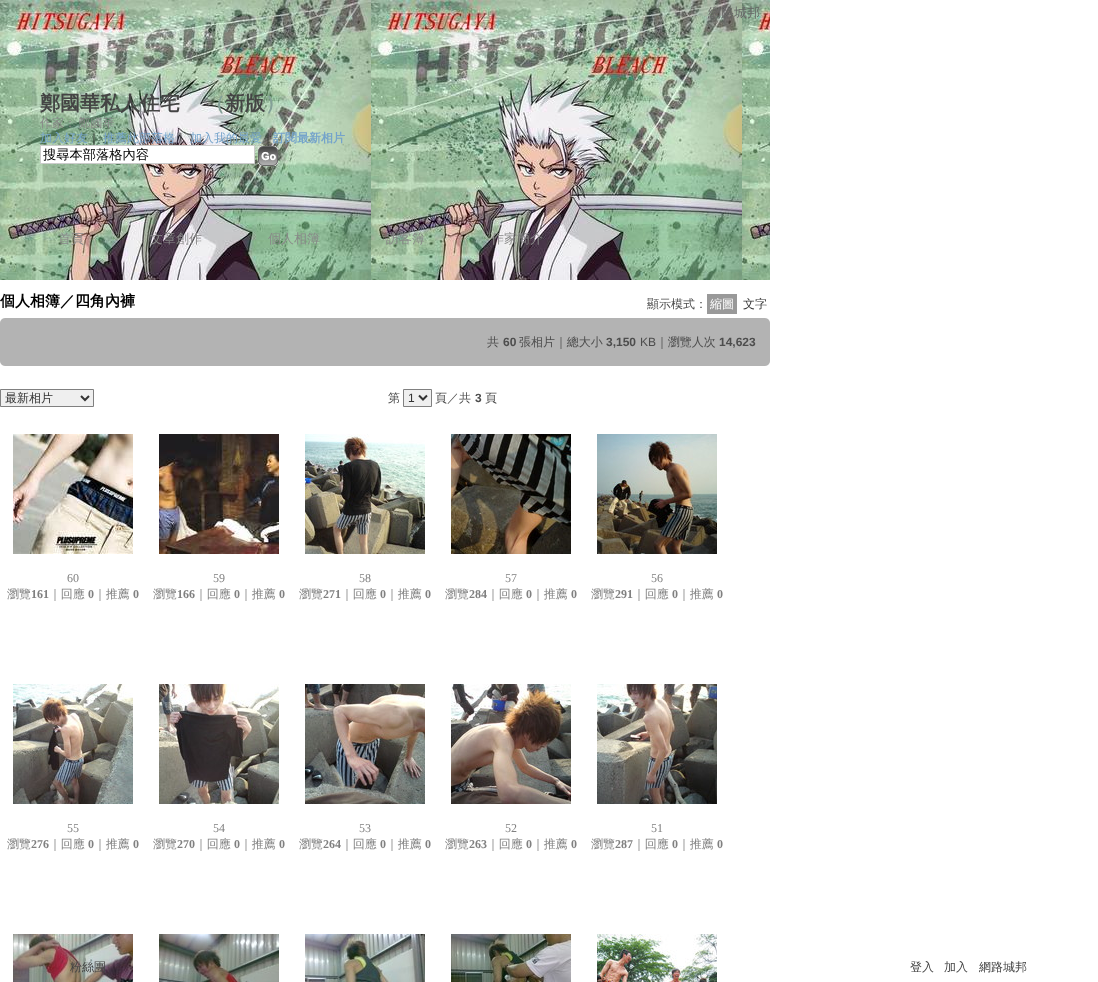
<svg xmlns="http://www.w3.org/2000/svg" width="1098" height="982" viewBox="0 0 1098 982">
  <rect width="100%" height="100%" fill="#fff"/>
  <image x="0" y="0" width="770" height="280" href="img/1.png"/>
  <path d="M40.5 145.5h214v18H40.5z" fill="#fff" stroke="#ccc"/>
  <image x="258" y="146" width="20" height="20" href="img/2.png"/>
  <path d="M707 294h30v20H707z" fill="#999"/>
  <image x="0" y="318" width="5" height="5" href="img/3.png"/>
  <path d="M5 318h760v5H5z" fill="#b3b3b3"/>
  <image x="765" y="318" width="5" height="5" href="img/4.png"/>
  <path d="M0 323h770v38H0z" fill="#b3b3b3"/>
  <image x="0" y="361" width="5" height="5" href="img/5.png"/>
  <path d="M5 361h760v5H5z" fill="#b3b3b3"/>
  <image x="765" y="361" width="5" height="5" href="img/6.png"/>
  <path d="M0.5 389.5h93v17H0.5z" fill="#efefef" stroke="#808080"/>
  <path d="M81 396L85 400L89 396" fill="none" stroke="#333" stroke-width="2"/>
  <path d="M403.5 389.5h28v17H403.5z" fill="#efefef" stroke="#808080"/>
  <path d="M419 395.5L423 399.5L427 395.5" fill="none" stroke="#333" stroke-width="2"/>
  <image x="13" y="434" width="120" height="120" href="img/7.png"/>
  <image x="159" y="434" width="120" height="120" href="img/8.png"/>
  <image x="305" y="434" width="120" height="120" href="img/9.png"/>
  <image x="451" y="434" width="120" height="120" href="img/10.png"/>
  <image x="597" y="434" width="120" height="120" href="img/11.png"/>
  <image x="13" y="684" width="120" height="120" href="img/12.png"/>
  <image x="159" y="684" width="120" height="120" href="img/13.png"/>
  <image x="305" y="684" width="120" height="120" href="img/14.png"/>
  <image x="451" y="684" width="120" height="120" href="img/15.png"/>
  <image x="597" y="684" width="120" height="120" href="img/16.png"/>
  <image x="13" y="934" width="120" height="48" href="img/17.png"/>
  <image x="159" y="934" width="120" height="48" href="img/18.png"/>
  <image x="305" y="934" width="120" height="48" href="img/19.png"/>
  <image x="451" y="934" width="120" height="48" href="img/20.png"/>
  <image x="597" y="934" width="120" height="48" href="img/21.png"/>
  <text x="708" y="17" font-family="WenQuanYi Zen Hei" font-size="13" font-weight="500" fill="#666">網路城邦</text>
  <text x="40" y="110" font-family="WenQuanYi Zen Hei" font-size="20" font-weight="bold" fill="#444">鄭國華私人住宅</text>
  <text x="205" y="110" font-family="WenQuanYi Zen Hei" font-size="20" font-weight="bold" fill="#84a097">（</text>
  <text x="225" y="110" font-family="WenQuanYi Zen Hei" font-size="20" font-weight="bold" fill="#444">新版</text>
  <text x="265" y="110" font-family="WenQuanYi Zen Hei" font-size="20" font-weight="bold" fill="#84a097">）</text>
  <text x="40" y="127" word-spacing="-1" font-family="WenQuanYi Zen Hei" font-size="12" font-weight="500" fill="#888">作家： 鄭國華</text>
  <text x="40" y="142" font-family="WenQuanYi Zen Hei" font-size="12" font-weight="500" fill="#74a3cb">加入好友</text>
  <text x="88" y="142" font-family="WenQuanYi Zen Hei" font-size="12" font-weight="500" fill="#333">｜</text>
  <text x="103" y="142" font-family="WenQuanYi Zen Hei" font-size="12" font-weight="500" fill="#74a3cb">推薦此部落格</text>
  <text x="175" y="142" font-family="WenQuanYi Zen Hei" font-size="12" font-weight="500" fill="#333">｜</text>
  <text x="190" y="142" font-family="WenQuanYi Zen Hei" font-size="12" font-weight="500" fill="#74a3cb">加入我的最愛</text>
  <text x="262" y="142" font-family="WenQuanYi Zen Hei" font-size="12" font-weight="500" fill="#333">｜</text>
  <text x="273" y="142" font-family="WenQuanYi Zen Hei" font-size="12" font-weight="bold" fill="#74a3cb">訂閱最新相片</text>
  <text x="43" y="159" font-family="WenQuanYi Zen Hei" font-size="13.25" font-weight="500" fill="#000">搜尋本部落格內容</text>
  <g font-family="WenQuanYi Zen Hei" font-size="13" font-weight="500" fill="#888">
    <text x="58" y="243">首頁</text>
    <text x="150" y="243">文章創作</text>
    <text x="268" y="243">個人相簿</text>
    <text x="386" y="243">訪客簿</text>
    <text x="491" y="243">作家簡介</text>
  </g>
  <text x="0" y="306" font-family="WenQuanYi Zen Hei" font-size="15" font-weight="bold" fill="#000">個人相簿／四角內褲</text>
  <text x="647" y="308" font-family="WenQuanYi Zen Hei" font-size="12" font-weight="500" fill="#4d4d4d">顯示模式：</text>
  <text x="710" y="308" font-family="WenQuanYi Zen Hei" font-size="12" font-weight="500" fill="#fff">縮圖</text>
  <text x="743" y="308" font-family="WenQuanYi Zen Hei" font-size="12" font-weight="500" fill="#333">文字</text>
  <text x="487" y="346" font-family="WenQuanYi Zen Hei" font-size="12" font-weight="500" fill="#4d4d4d">共</text>
  <text x="503" y="346" font-family="Liberation Sans" font-size="12" font-weight="bold" fill="#4d4d4d">60</text>
  <text x="519" y="346" font-family="WenQuanYi Zen Hei" font-size="12" font-weight="500" fill="#4d4d4d">張相片｜總大小</text>
  <text x="606" y="346" font-family="Liberation Sans" font-size="12" font-weight="bold" fill="#4d4d4d">3,150</text>
  <text x="640" y="346" font-family="Liberation Sans" font-size="12" fill="#4d4d4d">KB</text>
  <text x="656" y="346" font-family="WenQuanYi Zen Hei" font-size="12" font-weight="500" fill="#4d4d4d">｜瀏覽人次</text>
  <text x="719" y="346" font-family="Liberation Sans" font-size="12" font-weight="bold" fill="#4d4d4d">14,623</text>
  <text x="5" y="402" font-family="WenQuanYi Zen Hei" font-size="12" font-weight="500" fill="#333">最新相片</text>
  <text x="388" y="402" font-family="WenQuanYi Zen Hei" font-size="12" font-weight="500" fill="#4d4d4d">第</text>
  <text x="408" y="402" font-family="Liberation Sans" font-size="12" fill="#333">1</text>
  <text x="435" y="402" font-family="WenQuanYi Zen Hei" font-size="12" font-weight="500" fill="#4d4d4d">頁／共</text>
  <text x="475" y="402" font-family="Liberation Sans" font-size="12" font-weight="bold" fill="#4d4d4d">3</text>
  <text x="485" y="402" font-family="WenQuanYi Zen Hei" font-size="12" font-weight="500" fill="#4d4d4d">頁</text>
  <text x="67" y="582" font-family="Liberation Serif" font-size="12" fill="#808080">60</text>
  <text x="7" y="598" font-family="WenQuanYi Zen Hei" font-size="12" font-weight="500" fill="#808080">瀏覽</text>
  <text x="31" y="598" font-family="Liberation Serif" font-size="12" font-weight="bold" fill="#808080">161</text>
  <text x="49" y="598" font-family="WenQuanYi Zen Hei" font-size="12" font-weight="500" fill="#808080">｜回應</text>
  <text x="88" y="598" font-family="Liberation Serif" font-size="12" font-weight="bold" fill="#808080">0</text>
  <text x="94" y="598" font-family="WenQuanYi Zen Hei" font-size="12" font-weight="500" fill="#808080">｜推薦</text>
  <text x="133" y="598" font-family="Liberation Serif" font-size="12" font-weight="bold" fill="#808080">0</text>
  <text x="213" y="582" font-family="Liberation Serif" font-size="12" fill="#808080">59</text>
  <text x="153" y="598" font-family="WenQuanYi Zen Hei" font-size="12" font-weight="500" fill="#808080">瀏覽</text>
  <text x="177" y="598" font-family="Liberation Serif" font-size="12" font-weight="bold" fill="#808080">166</text>
  <text x="195" y="598" font-family="WenQuanYi Zen Hei" font-size="12" font-weight="500" fill="#808080">｜回應</text>
  <text x="234" y="598" font-family="Liberation Serif" font-size="12" font-weight="bold" fill="#808080">0</text>
  <text x="240" y="598" font-family="WenQuanYi Zen Hei" font-size="12" font-weight="500" fill="#808080">｜推薦</text>
  <text x="279" y="598" font-family="Liberation Serif" font-size="12" font-weight="bold" fill="#808080">0</text>
  <text x="359" y="582" font-family="Liberation Serif" font-size="12" fill="#808080">58</text>
  <text x="299" y="598" font-family="WenQuanYi Zen Hei" font-size="12" font-weight="500" fill="#808080">瀏覽</text>
  <text x="323" y="598" font-family="Liberation Serif" font-size="12" font-weight="bold" fill="#808080">271</text>
  <text x="341" y="598" font-family="WenQuanYi Zen Hei" font-size="12" font-weight="500" fill="#808080">｜回應</text>
  <text x="380" y="598" font-family="Liberation Serif" font-size="12" font-weight="bold" fill="#808080">0</text>
  <text x="386" y="598" font-family="WenQuanYi Zen Hei" font-size="12" font-weight="500" fill="#808080">｜推薦</text>
  <text x="425" y="598" font-family="Liberation Serif" font-size="12" font-weight="bold" fill="#808080">0</text>
  <text x="505" y="582" font-family="Liberation Serif" font-size="12" fill="#808080">57</text>
  <text x="445" y="598" font-family="WenQuanYi Zen Hei" font-size="12" font-weight="500" fill="#808080">瀏覽</text>
  <text x="469" y="598" font-family="Liberation Serif" font-size="12" font-weight="bold" fill="#808080">284</text>
  <text x="487" y="598" font-family="WenQuanYi Zen Hei" font-size="12" font-weight="500" fill="#808080">｜回應</text>
  <text x="526" y="598" font-family="Liberation Serif" font-size="12" font-weight="bold" fill="#808080">0</text>
  <text x="532" y="598" font-family="WenQuanYi Zen Hei" font-size="12" font-weight="500" fill="#808080">｜推薦</text>
  <text x="571" y="598" font-family="Liberation Serif" font-size="12" font-weight="bold" fill="#808080">0</text>
  <text x="651" y="582" font-family="Liberation Serif" font-size="12" fill="#808080">56</text>
  <text x="591" y="598" font-family="WenQuanYi Zen Hei" font-size="12" font-weight="500" fill="#808080">瀏覽</text>
  <text x="615" y="598" font-family="Liberation Serif" font-size="12" font-weight="bold" fill="#808080">291</text>
  <text x="633" y="598" font-family="WenQuanYi Zen Hei" font-size="12" font-weight="500" fill="#808080">｜回應</text>
  <text x="672" y="598" font-family="Liberation Serif" font-size="12" font-weight="bold" fill="#808080">0</text>
  <text x="678" y="598" font-family="WenQuanYi Zen Hei" font-size="12" font-weight="500" fill="#808080">｜推薦</text>
  <text x="717" y="598" font-family="Liberation Serif" font-size="12" font-weight="bold" fill="#808080">0</text>
  <text x="67" y="832" font-family="Liberation Serif" font-size="12" fill="#808080">55</text>
  <text x="7" y="848" font-family="WenQuanYi Zen Hei" font-size="12" font-weight="500" fill="#808080">瀏覽</text>
  <text x="31" y="848" font-family="Liberation Serif" font-size="12" font-weight="bold" fill="#808080">276</text>
  <text x="49" y="848" font-family="WenQuanYi Zen Hei" font-size="12" font-weight="500" fill="#808080">｜回應</text>
  <text x="88" y="848" font-family="Liberation Serif" font-size="12" font-weight="bold" fill="#808080">0</text>
  <text x="94" y="848" font-family="WenQuanYi Zen Hei" font-size="12" font-weight="500" fill="#808080">｜推薦</text>
  <text x="133" y="848" font-family="Liberation Serif" font-size="12" font-weight="bold" fill="#808080">0</text>
  <text x="213" y="832" font-family="Liberation Serif" font-size="12" fill="#808080">54</text>
  <text x="153" y="848" font-family="WenQuanYi Zen Hei" font-size="12" font-weight="500" fill="#808080">瀏覽</text>
  <text x="177" y="848" font-family="Liberation Serif" font-size="12" font-weight="bold" fill="#808080">270</text>
  <text x="195" y="848" font-family="WenQuanYi Zen Hei" font-size="12" font-weight="500" fill="#808080">｜回應</text>
  <text x="234" y="848" font-family="Liberation Serif" font-size="12" font-weight="bold" fill="#808080">0</text>
  <text x="240" y="848" font-family="WenQuanYi Zen Hei" font-size="12" font-weight="500" fill="#808080">｜推薦</text>
  <text x="279" y="848" font-family="Liberation Serif" font-size="12" font-weight="bold" fill="#808080">0</text>
  <text x="359" y="832" font-family="Liberation Serif" font-size="12" fill="#808080">53</text>
  <text x="299" y="848" font-family="WenQuanYi Zen Hei" font-size="12" font-weight="500" fill="#808080">瀏覽</text>
  <text x="323" y="848" font-family="Liberation Serif" font-size="12" font-weight="bold" fill="#808080">264</text>
  <text x="341" y="848" font-family="WenQuanYi Zen Hei" font-size="12" font-weight="500" fill="#808080">｜回應</text>
  <text x="380" y="848" font-family="Liberation Serif" font-size="12" font-weight="bold" fill="#808080">0</text>
  <text x="386" y="848" font-family="WenQuanYi Zen Hei" font-size="12" font-weight="500" fill="#808080">｜推薦</text>
  <text x="425" y="848" font-family="Liberation Serif" font-size="12" font-weight="bold" fill="#808080">0</text>
  <text x="505" y="832" font-family="Liberation Serif" font-size="12" fill="#808080">52</text>
  <text x="445" y="848" font-family="WenQuanYi Zen Hei" font-size="12" font-weight="500" fill="#808080">瀏覽</text>
  <text x="469" y="848" font-family="Liberation Serif" font-size="12" font-weight="bold" fill="#808080">263</text>
  <text x="487" y="848" font-family="WenQuanYi Zen Hei" font-size="12" font-weight="500" fill="#808080">｜回應</text>
  <text x="526" y="848" font-family="Liberation Serif" font-size="12" font-weight="bold" fill="#808080">0</text>
  <text x="532" y="848" font-family="WenQuanYi Zen Hei" font-size="12" font-weight="500" fill="#808080">｜推薦</text>
  <text x="571" y="848" font-family="Liberation Serif" font-size="12" font-weight="bold" fill="#808080">0</text>
  <text x="651" y="832" font-family="Liberation Serif" font-size="12" fill="#808080">51</text>
  <text x="591" y="848" font-family="WenQuanYi Zen Hei" font-size="12" font-weight="500" fill="#808080">瀏覽</text>
  <text x="615" y="848" font-family="Liberation Serif" font-size="12" font-weight="bold" fill="#808080">287</text>
  <text x="633" y="848" font-family="WenQuanYi Zen Hei" font-size="12" font-weight="500" fill="#808080">｜回應</text>
  <text x="672" y="848" font-family="Liberation Serif" font-size="12" font-weight="bold" fill="#808080">0</text>
  <text x="678" y="848" font-family="WenQuanYi Zen Hei" font-size="12" font-weight="500" fill="#808080">｜推薦</text>
  <text x="717" y="848" font-family="Liberation Serif" font-size="12" font-weight="bold" fill="#808080">0</text>
  <g font-family="WenQuanYi Zen Hei" font-size="12" font-weight="500" fill="#444">
    <text x="70" y="971">粉絲團</text>
    <text x="910" y="971">登入</text>
    <text x="944" y="971">加入</text>
    <text x="979" y="971">網路城邦</text>
  </g>
</svg>
